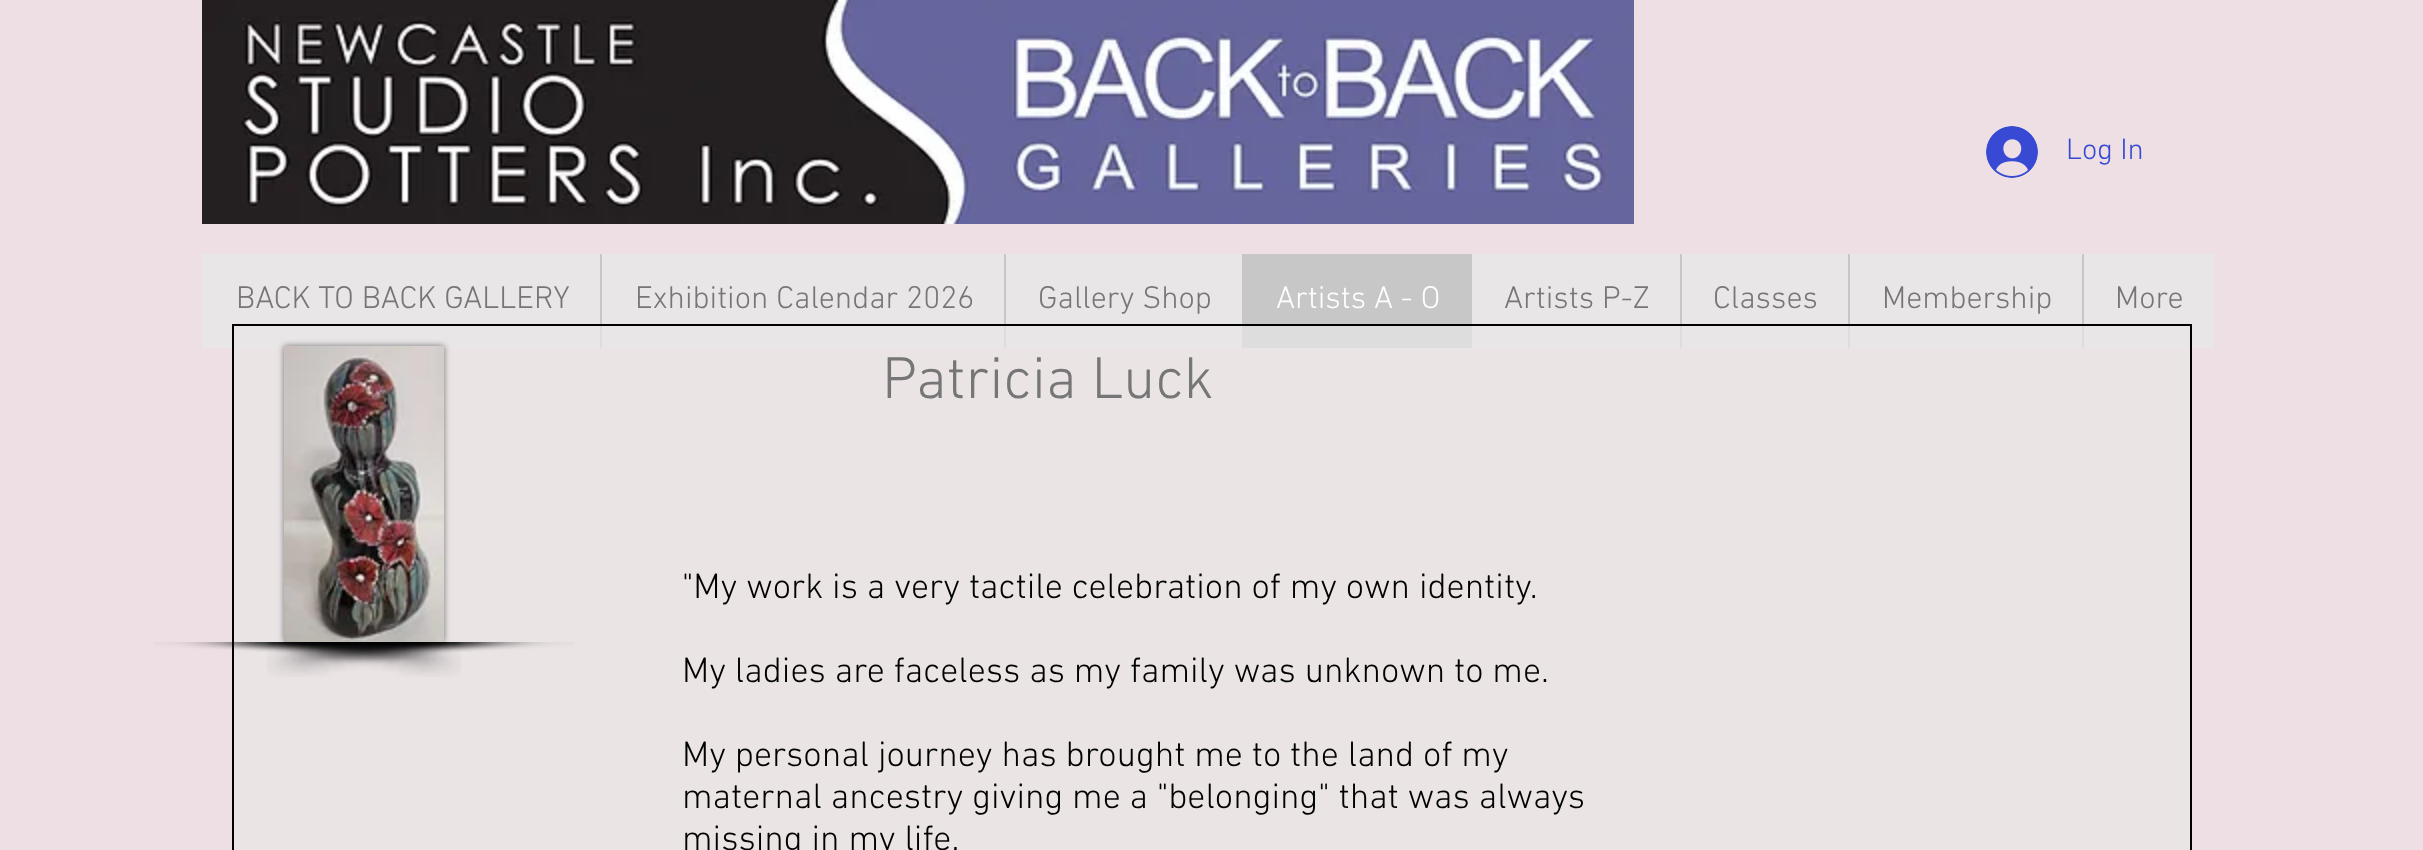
<svg xmlns="http://www.w3.org/2000/svg" width="2423" height="850" viewBox="0 0 2423 850">
  <rect width="100%" height="100%" fill="#eddfe4"/>
  <image x="202" y="0" width="1432" height="224" href="img/1.png"/>
  <image x="1986" y="126" width="52" height="52" href="img/2.png"/>
  <path d="M202 254h2012v94H202z" fill="#e8e6e6"/>
  <path d="M600 254h2v70H600z" fill="#c7c7c7"/>
  <path d="M600 324h2v24H600z" fill="#dedddd"/>
  <path d="M1004 254h2v70H1004z" fill="#c7c7c7"/>
  <path d="M1004 324h2v24H1004z" fill="#dedddd"/>
  <path d="M1242 254h230v70H1242z" fill="#c7c7c7"/>
  <path d="M1242 326h228v22H1242z" fill="#dedddd"/>
  <path d="M1470 324h2v24H1470z" fill="#dedddd"/>
  <path d="M1680 254h2v70H1680z" fill="#c7c7c7"/>
  <path d="M1680 324h2v24H1680z" fill="#dedddd"/>
  <path d="M1848 254h2v70H1848z" fill="#c7c7c7"/>
  <path d="M1848 324h2v24H1848z" fill="#dedddd"/>
  <path d="M2082 254h2v70H2082z" fill="#c7c7c7"/>
  <path d="M2082 324h2v24H2082z" fill="#dedddd"/>
  <path d="M234 348h1956v502H234z" fill="#eae4e5"/>
  <path d="M233 325h1958v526H233z" fill="none" stroke="#000" stroke-width="2"/>
  <path d="M284 346h160v296H284z" fill="#00000080" filter="blur(3px)"/>
  <image x="284" y="346" width="160" height="296" href="img/3.png"/>
  <image x="267" y="642" width="307" height="35" href="img/5.png"/>
  <image x="154" y="642" width="307" height="35" href="img/4.png"/>
  <text x="2066" y="159" font-family="'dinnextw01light'" font-size="30" font-weight="300" fill="#384ad3">Log In</text>
  <g font-family="'dinnextw01light'" font-size="32" font-weight="300" fill="#767676">
    <text x="236" y="308">BACK TO BACK GALLERY</text>
    <text x="635" y="308">Exhibition Calendar 2026</text>
    <text x="1038" y="308">Gallery Shop</text>
  </g>
  <text x="1276" y="308" font-family="'dinnextw01light'" font-size="32" font-weight="300" fill="#fff">Artists A - O</text>
  <g font-family="'dinnextw01light'" font-size="32" font-weight="300" fill="#767676">
    <text x="1504" y="308">Artists P-Z</text>
    <text x="1713" y="308">Classes</text>
    <text x="1882" y="308">Membership</text>
    <text x="2115" y="308">More</text>
  </g>
  <text x="882" y="398" font-family="'dinnextw01light'" font-size="60" font-weight="300" fill="#767676">Patricia Luck</text>
  <g font-family="'dinnextw01light'" font-size="36" font-weight="300" fill="#000">
    <text x="682" y="598">"My work is a very tactile celebration of my own identity.</text>
    <text x="682" y="682">My ladies are faceless as my family was unknown to me.</text>
    <text x="682" y="766">My personal journey has brought me to the land of my</text>
    <text x="682" y="808">maternal ancestry giving me a "belonging" that was always</text>
    <text x="682" y="850">missing in my life.</text>
  </g>
</svg>
